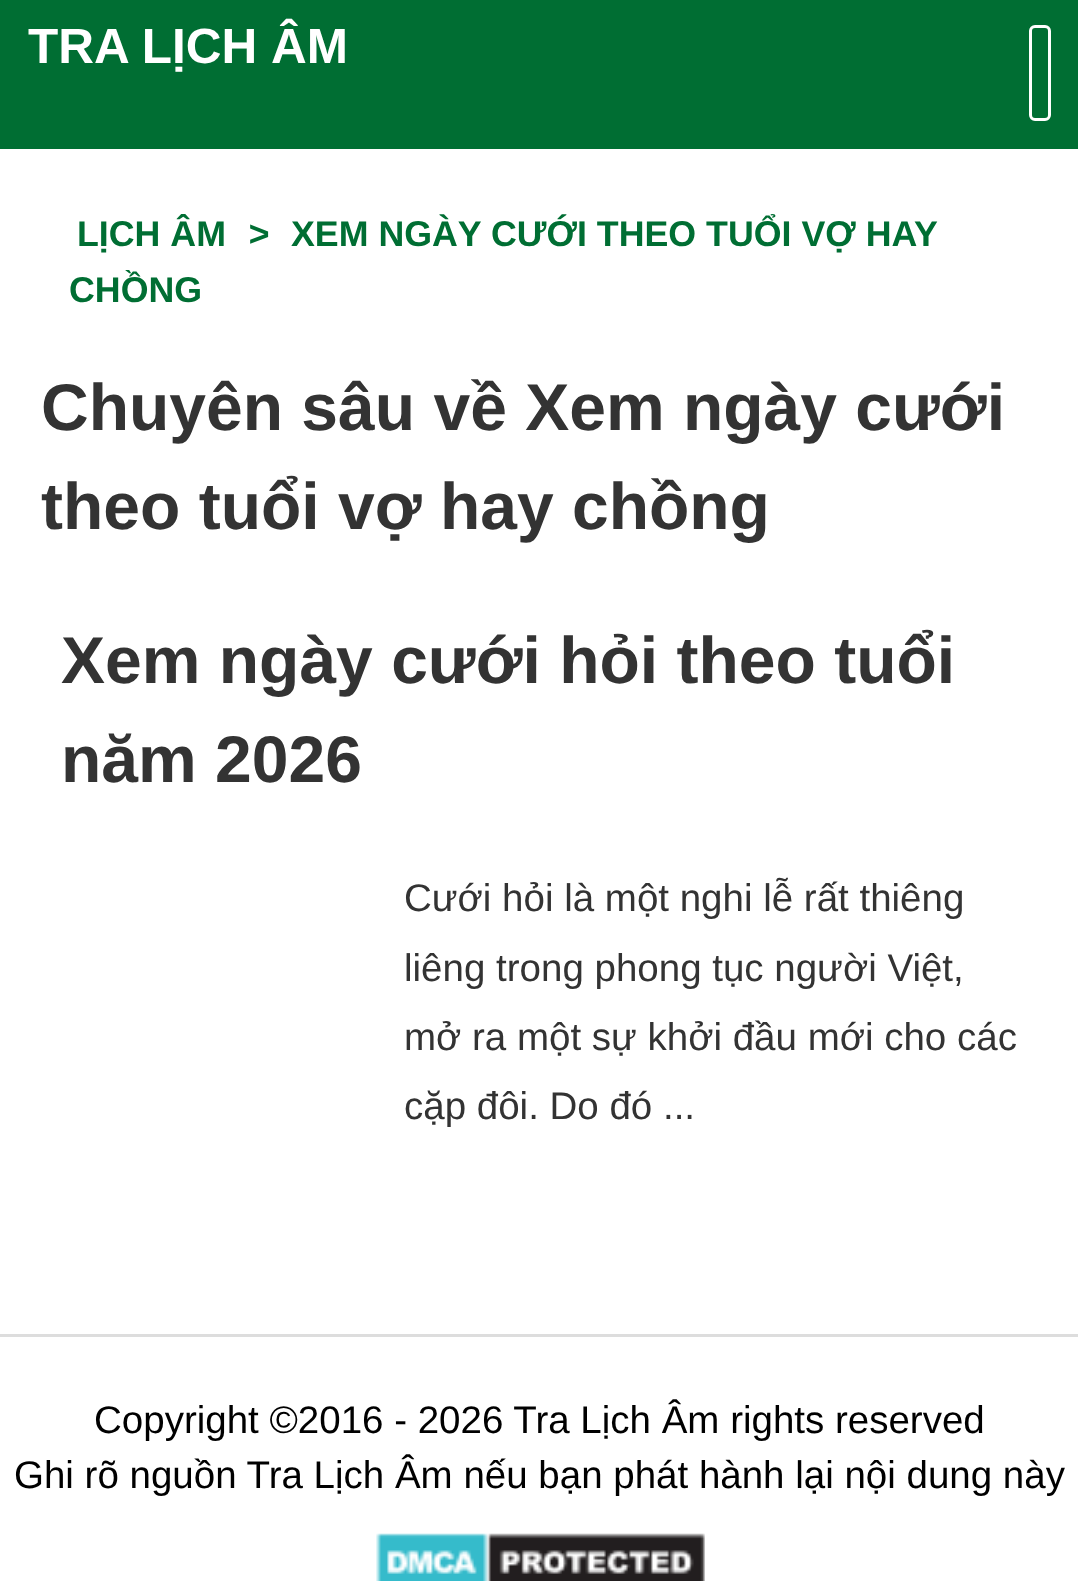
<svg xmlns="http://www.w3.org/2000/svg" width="1078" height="1581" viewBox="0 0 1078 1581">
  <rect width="100%" height="100%" fill="#fff"/>
  <path d="M0 0h1078v149H0z" fill="#006e33"/>
  <rect x="1030.5" y="26.5" width="19" height="93" rx="4.5" fill="none" stroke="#fff" stroke-width="3"/>
  <path d="M0 1334h1078v3H0z" fill="#ddd"/>
  <image x="376" y="1533" width="329" height="48" href="img/1.png"/>
  <text x="28" y="63" font-family="Liberation Sans" font-size="49.5" font-weight="bold" fill="#fff">TRA LỊCH ÂM</text>
  <text x="77" y="246" font-family="Liberation Sans" font-size="35.75" font-weight="bold" fill="#006e33">LỊCH ÂM</text>
  <text x="248" y="246" font-family="Liberation Sans" font-size="35.75" font-weight="bold" font-style="italic" fill="#006e33">&gt;</text>
  <g font-family="Liberation Sans" font-size="35.75" font-weight="bold" fill="#006e33">
    <text x="291" y="246">XEM NGÀY CƯỚI THEO TUỔI VỢ HAY</text>
    <text x="69" y="302">CHỒNG</text>
  </g>
  <g font-family="Liberation Sans" font-size="66" font-weight="bold" fill="#333">
    <text x="41" y="430">Chuyên sâu về Xem ngày cưới</text>
    <text x="41" y="529">theo tuổi vợ hay chồng</text>
    <text x="61" y="683">Xem ngày cưới hỏi theo tuổi</text>
    <text x="61" y="782">năm 2026</text>
  </g>
  <g font-family="Liberation Sans" font-size="38.5" fill="#333">
    <text x="404" y="911">Cưới hỏi là một nghi lễ rất thiêng</text>
    <text x="404" y="981">liêng trong phong tục người Việt,</text>
    <text x="404" y="1050">mở ra một sự khởi đầu mới cho các</text>
    <text x="404" y="1119">cặp đôi. Do đó ...</text>
  </g>
  <g font-family="Liberation Sans" font-size="38.5" fill="#000">
    <text x="94" y="1433">Copyright ©2016 - 2026 Tra Lịch Âm rights reserved</text>
    <text x="14" y="1488">Ghi rõ nguồn Tra Lịch Âm nếu bạn phát hành lại nội dung này</text>
  </g>
</svg>
